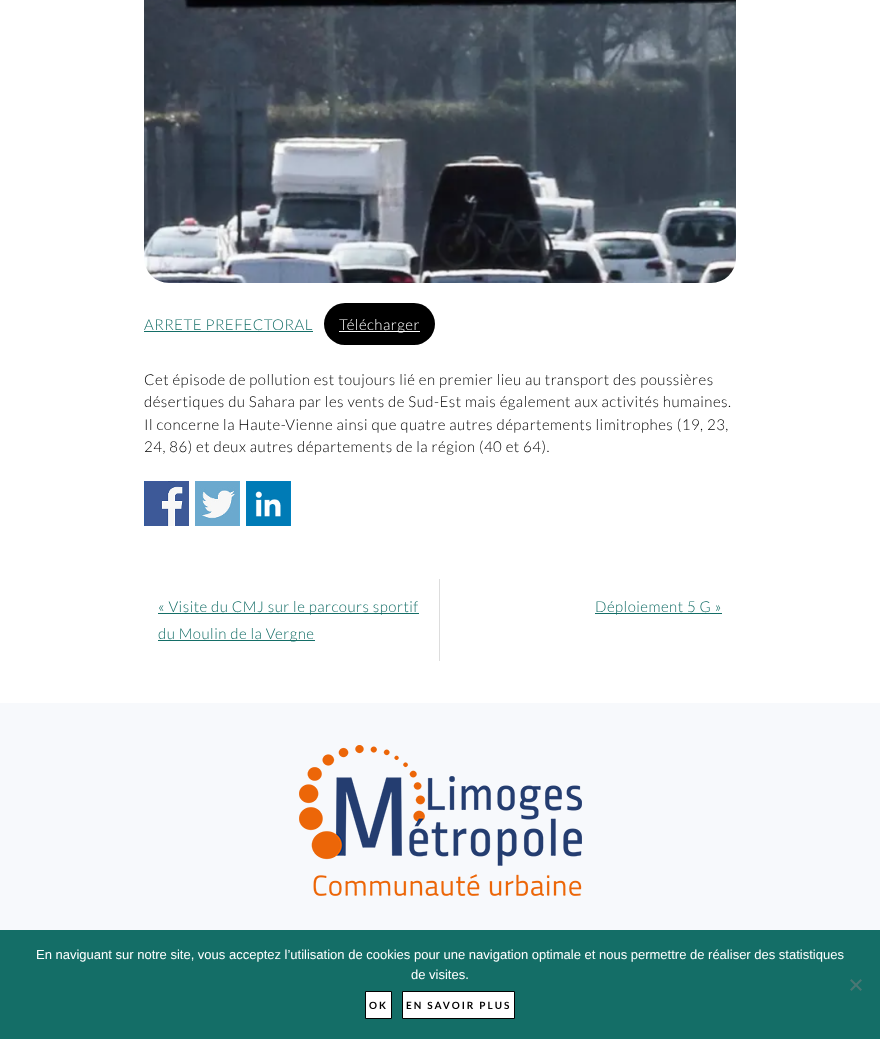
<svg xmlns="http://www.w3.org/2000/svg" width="880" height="1039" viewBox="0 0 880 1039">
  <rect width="100%" height="100%" fill="#fff"/>
  <image x="144" y="0" width="592" height="283" href="img/1.png"/>
  <path d="M144 331h169v1H144z" fill="#146e67"/>
  <rect x="324" y="303" width="111" height="42" rx="21" fill="#000"/>
  <path d="M339 331h81v1H339z" fill="#fff"/>
  <image x="144" y="481" width="45" height="45" href="img/2.png"/>
  <image x="195" y="481" width="45" height="45" href="img/3.png"/>
  <image x="246" y="481" width="45" height="45" href="img/4.png"/>
  <path d="M439 579h1v82H439z" fill="#ddd"/>
  <path d="M158 613h261v1H158z" fill="#146e67"/>
  <path d="M158 640h157v1H158z" fill="#146e67"/>
  <path d="M595 613h127v1H595z" fill="#146e67"/>
  <path d="M0 703h880v227H0z" fill="#f7f9fc"/>
  <image x="299" y="745" width="283" height="151" href="img/5.png"/>
  <path d="M0 930h880v109H0z" fill="#146e67"/>
  <path d="M860.5 979L862 980.5L851.5 991L850 989.5Z" fill="#4a7774"/>
  <path d="M850 980.5L851.5 979L862 989.5L860.5 991Z" fill="#4a7774"/>
  <path d="M365.5 991.5h26v27H365.5z" fill="#fff" stroke="#010101"/>
  <path d="M402.5 991.5h112v27H402.5z" fill="#fff" stroke="#010101"/>
  <text x="144" y="330" font-family="Lato" font-size="15" font-weight="300" letter-spacing="0.5" fill="#146e67">ARRETE PREFECTORAL</text>
  <text x="339" y="330" font-family="Lato" font-size="15" font-weight="300" letter-spacing="0.5" fill="#fff">Télécharger</text>
  <g font-family="Lato" font-size="15" font-weight="300" letter-spacing="0.5" fill="#010101">
    <text x="144" y="385">Cet épisode de pollution est toujours lié en premier lieu au transport des poussières</text>
    <text x="144" y="407">désertiques du Sahara par les vents de Sud-Est mais également aux activités humaines.</text>
    <text x="144" y="430">Il concerne la Haute-Vienne ainsi que quatre autres départements limitrophes (19, 23,</text>
    <text x="144" y="452">24, 86) et deux autres départements de la région (40 et 64).</text>
  </g>
  <g font-family="Lato" font-size="15" font-weight="300" letter-spacing="0.5" fill="#146e67">
    <text x="158" y="612">« Visite du CMJ sur le parcours sportif</text>
    <text x="158" y="639">du Moulin de la Vergne</text>
    <text x="595" y="612">Déploiement 5 G »</text>
  </g>
  <g font-family="Liberation Sans" font-size="13" fill="#fff">
    <text x="36" y="959">En naviguant sur notre site, vous acceptez l’utilisation de cookies pour une navigation optimale et nous permettre de réaliser des statistiques</text>
    <text x="411" y="979">de visites.</text>
  </g>
  <g font-family="Lato" font-size="10" font-weight="bold" letter-spacing="2" fill="#010101">
    <text x="369" y="1009">OK</text>
    <text x="406" y="1009">EN SAVOIR PLUS</text>
  </g>
</svg>
